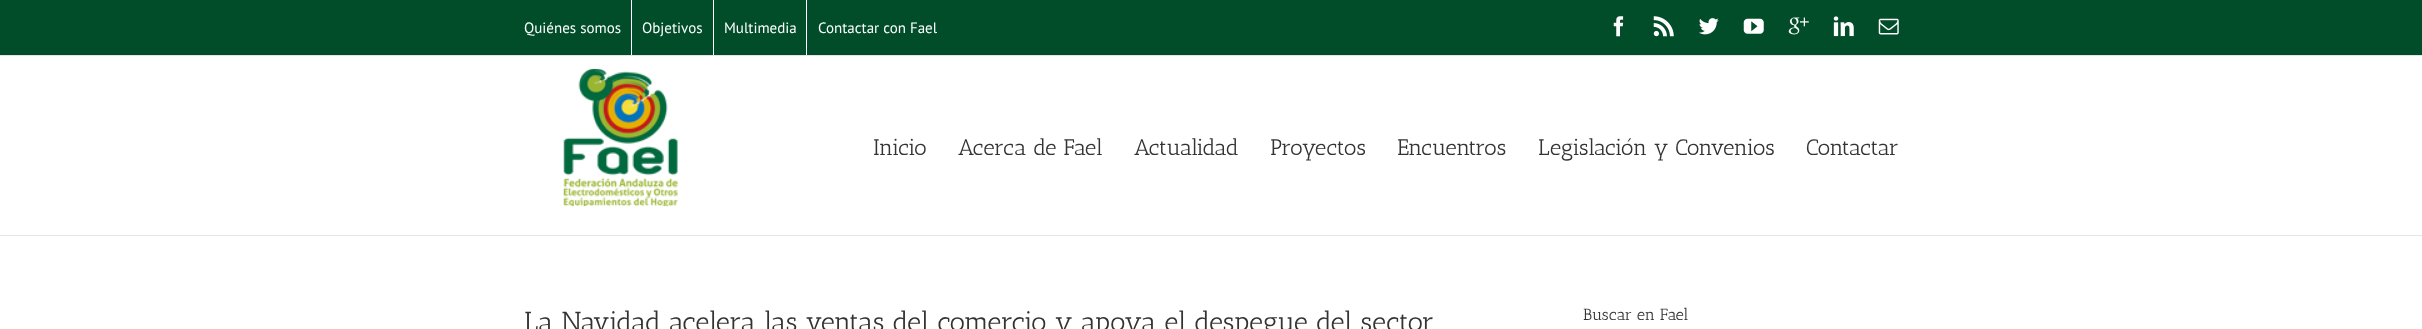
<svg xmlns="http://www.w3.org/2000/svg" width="2422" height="329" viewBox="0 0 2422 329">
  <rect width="100%" height="100%" fill="#fff"/>
  <path d="M0 0h2422v55H0z" fill="#014d29"/>
  <path d="M0 55h2422v1H0z" fill="#e5e5e5"/>
  <path d="M631 0h1v55H631z" fill="#fff"/>
  <path d="M713 0h1v55H713z" fill="#fff"/>
  <path d="M806 0h1v55H806z" fill="#fff"/>
  <image x="1613" y="16" width="11" height="21" href="img/1.png"/>
  <image x="1653" y="16" width="21" height="21" href="img/2.png"/>
  <image x="1699" y="18" width="20" height="17" href="img/3.png"/>
  <image x="1743" y="18" width="21" height="16" href="img/4.png"/>
  <image x="1788" y="17" width="21" height="18" href="img/5.png"/>
  <image x="1833" y="16" width="21" height="21" href="img/6.png"/>
  <image x="1878" y="18" width="21" height="17" href="img/7.png"/>
  <path d="M0 235h2422v1H0z" fill="#e5e5e5"/>
  <image x="563" y="68" width="115" height="139" href="img/8.png"/>
  <g font-family="PT Sans" font-size="15" fill="#fff">
    <text x="524" y="33">Quiénes somos</text>
    <text x="642" y="33">Objetivos</text>
    <text x="724" y="33">Multimedia</text>
    <text x="818" y="33">Contactar con Fael</text>
  </g>
  <g font-family="Antic Slab" font-size="22.5" fill="#333">
    <text x="873" y="155">Inicio</text>
    <text x="958" y="155">Acerca de Fael</text>
    <text x="1134" y="155">Actualidad</text>
    <text x="1270" y="155">Proyectos</text>
    <text x="1397" y="155">Encuentros</text>
    <text x="1538" y="155">Legislación y Convenios</text>
    <text x="1806" y="155">Contactar</text>
  </g>
  <text x="524" y="331" font-family="Antic Slab" font-size="27.5" fill="#333">La Navidad acelera las ventas del comercio y apoya el despegue del sector</text>
  <text x="1583" y="320" font-family="Antic Slab" font-size="16.25" fill="#333">Buscar en Fael</text>
</svg>
